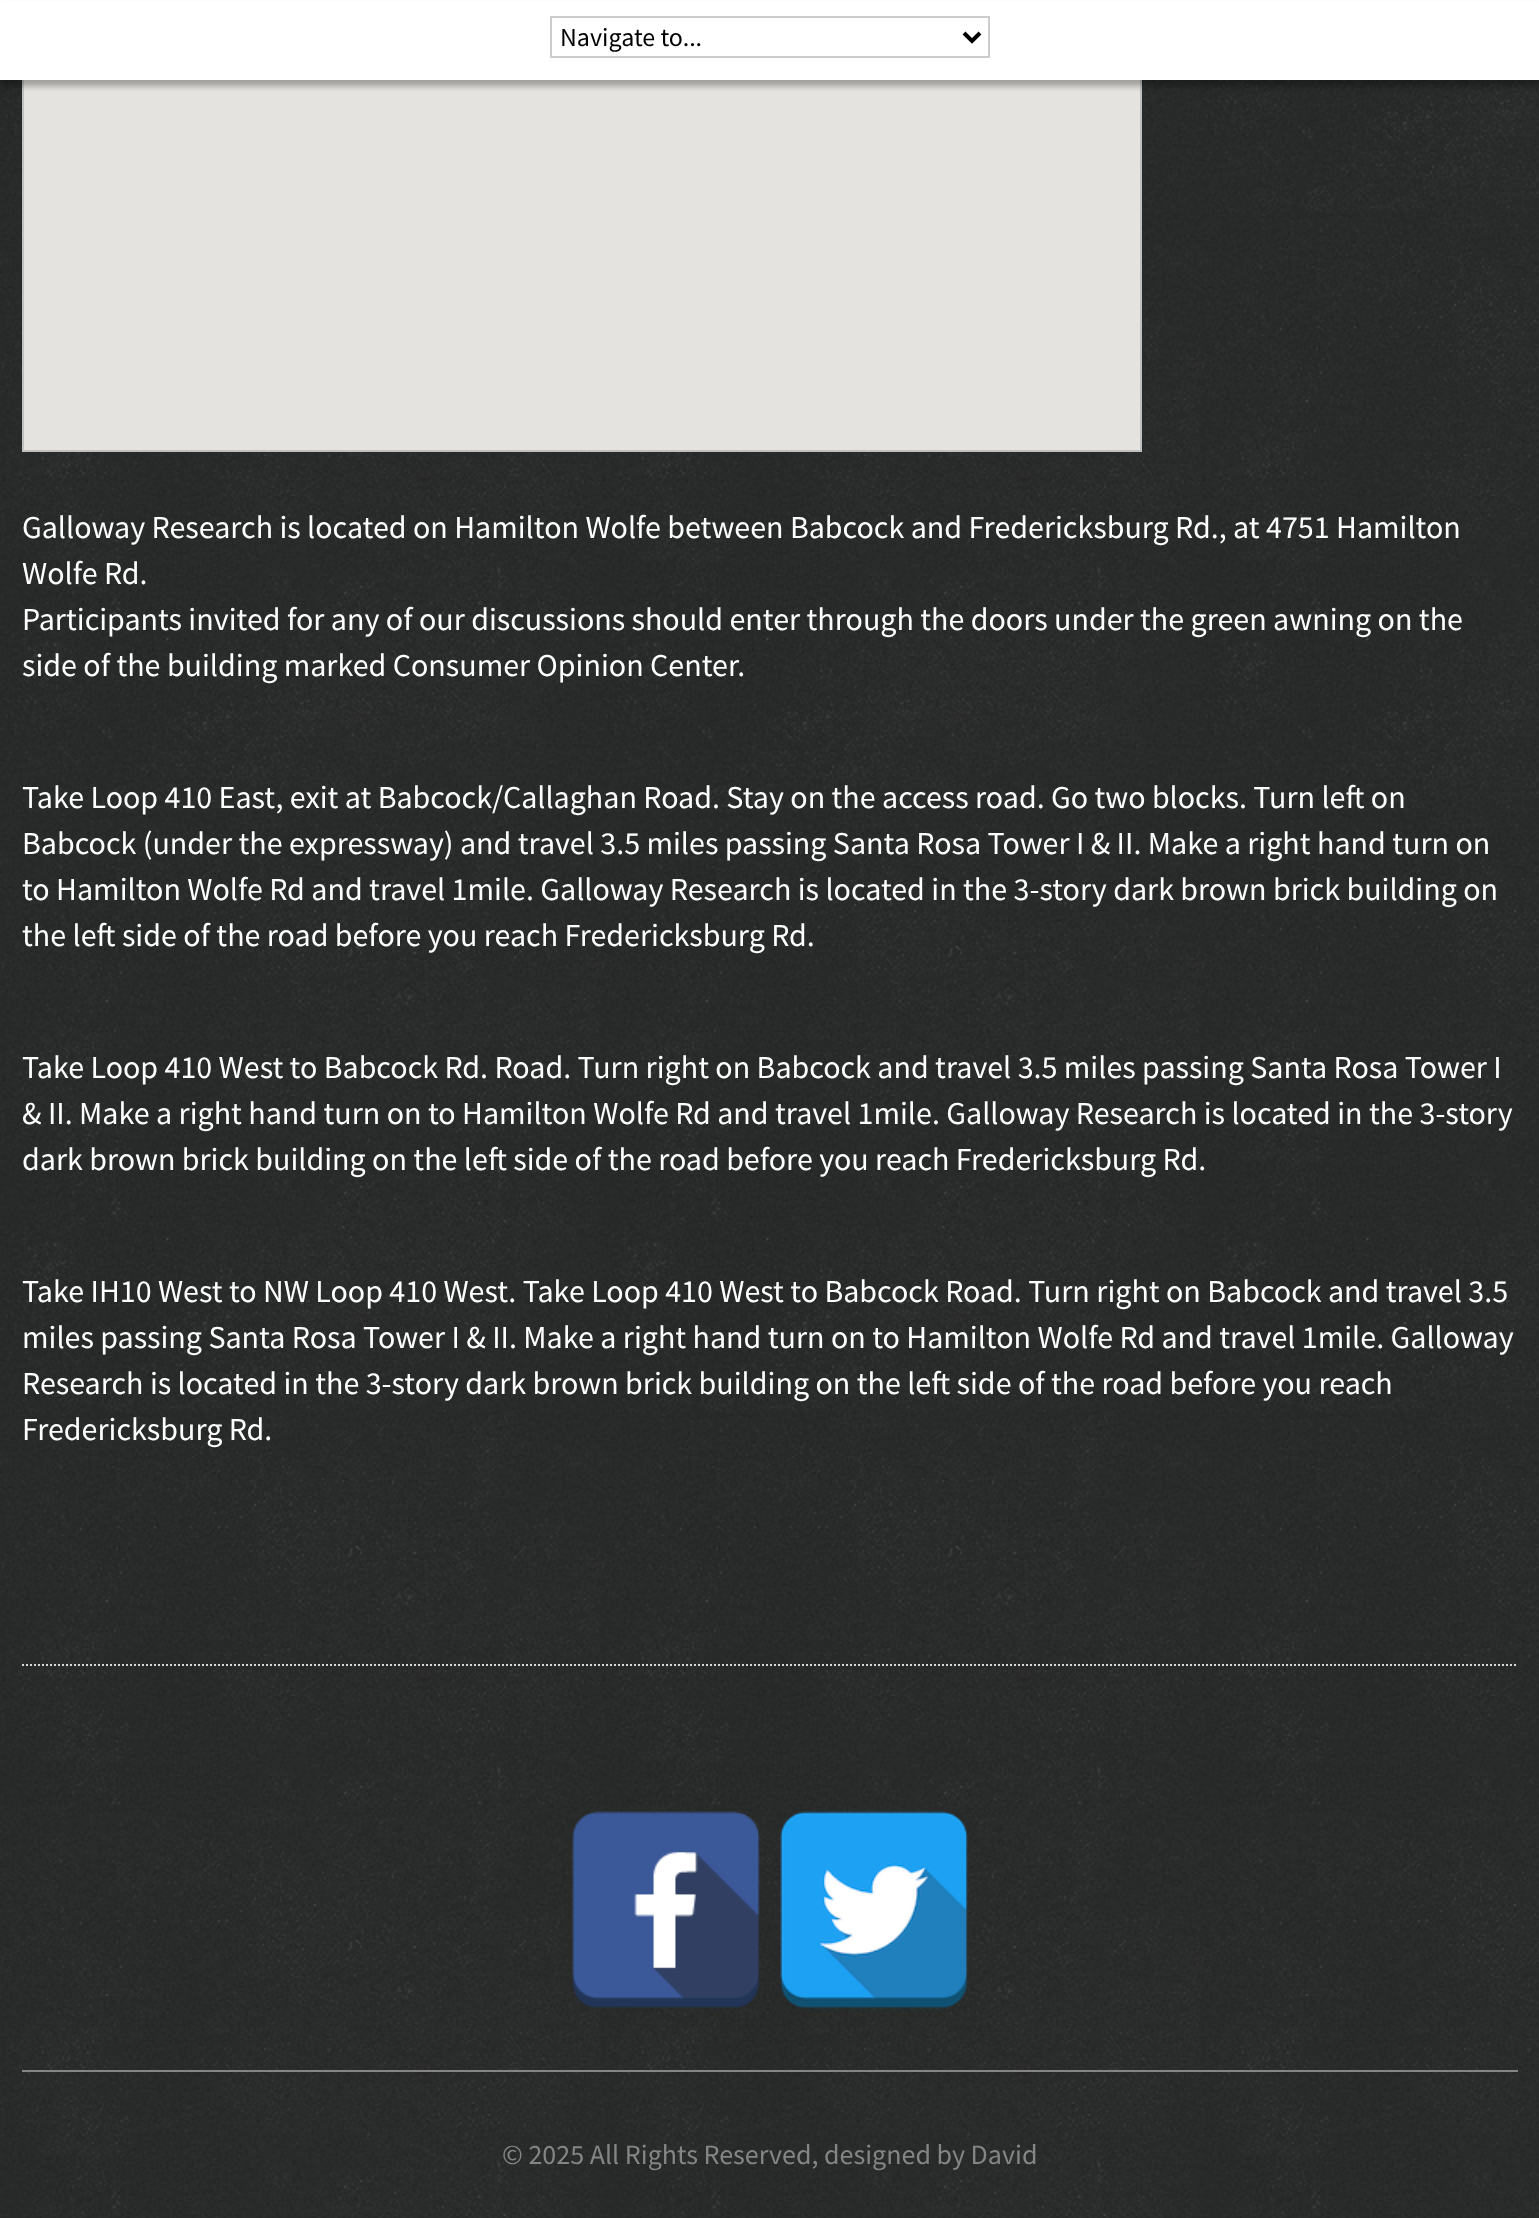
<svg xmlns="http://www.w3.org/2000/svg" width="1539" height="2218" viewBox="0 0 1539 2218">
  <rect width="100%" height="100%" fill="#fff"/>
  <image x="0" y="80" width="1539" height="1726" href="img/1.png"/>
  <image x="22" y="80" width="1120" height="372" href="img/2.png"/>
  <path d="M0 6h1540v80H0z" fill="#0000004d" filter="blur(3px)"/>
  <path d="M0 1h1539v79H0z" fill="#fff"/>
  <path d="M551 17h438v40H551z" fill="none" stroke="#ccc" stroke-width="2"/>
  <path d="M964 33L972 41L980 33" fill="none" stroke="#000" stroke-width="4"/>
  <path d="M22 1665H1518" fill="none" stroke="#d9d9d9" stroke-width="2" stroke-dasharray="2 2"/>
  <image x="0" y="1806" width="1539" height="412" href="img/3.png"/>
  <image x="572" y="1811" width="188" height="198" href="img/4.png"/>
  <image x="780" y="1811" width="188" height="198" href="img/5.png"/>
  <path d="M22 2070h1496v2H22z" fill="#858585"/>
  <text x="560" y="46" font-family="Source Sans Pro" font-size="26" fill="#000">Navigate to...</text>
  <g font-family="Source Sans Pro" font-size="32" fill="#fff">
    <text x="22" y="538">Galloway Research is located on Hamilton Wolfe between Babcock and Fredericksburg Rd., at 4751 Hamilton</text>
    <text x="22" y="584">Wolfe Rd.</text>
    <text x="22" y="630">Participants invited for any of our discussions should enter through the doors under the green awning on the</text>
    <text x="22" y="676">side of the building marked Consumer Opinion Center.</text>
    <text x="22" y="808">Take Loop 410 East, exit at Babcock/Callaghan Road. Stay on the access road. Go two blocks. Turn left on</text>
    <text x="22" y="854">Babcock (under the expressway) and travel 3.5 miles passing Santa Rosa Tower I &amp; II. Make a right hand turn on</text>
    <text x="22" y="900">to Hamilton Wolfe Rd and travel 1mile. Galloway Research is located in the 3-story dark brown brick building on</text>
    <text x="22" y="946">the left side of the road before you reach Fredericksburg Rd.</text>
    <text x="22" y="1078">Take Loop 410 West to Babcock Rd. Road. Turn right on Babcock and travel 3.5 miles passing Santa Rosa Tower I</text>
    <text x="22" y="1124">&amp; II. Make a right hand turn on to Hamilton Wolfe Rd and travel 1mile. Galloway Research is located in the 3-story</text>
    <text x="22" y="1170">dark brown brick building on the left side of the road before you reach Fredericksburg Rd.</text>
    <text x="22" y="1302">Take IH10 West to NW Loop 410 West. Take Loop 410 West to Babcock Road. Turn right on Babcock and travel 3.5</text>
    <text x="22" y="1348">miles passing Santa Rosa Tower I &amp; II. Make a right hand turn on to Hamilton Wolfe Rd and travel 1mile. Galloway</text>
    <text x="22" y="1394">Research is located in the 3-story dark brown brick building on the left side of the road before you reach</text>
    <text x="22" y="1440">Fredericksburg Rd.</text>
  </g>
  <text x="502" y="2164" font-family="Source Sans Pro" font-size="28" fill="#858585">© 2025 All Rights Reserved, designed by David</text>
</svg>
